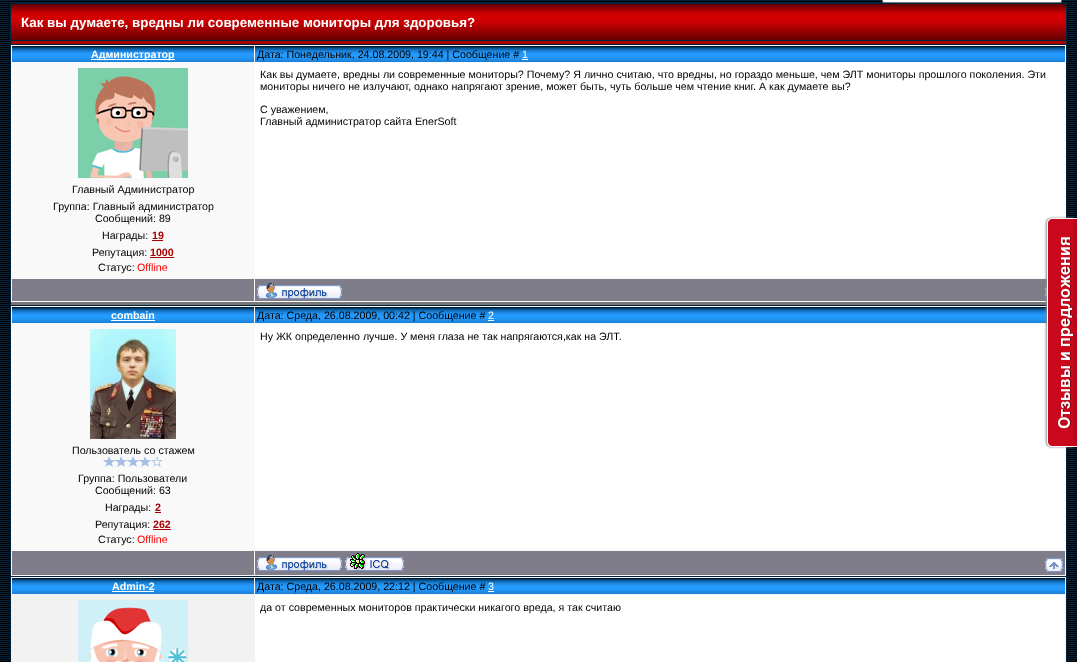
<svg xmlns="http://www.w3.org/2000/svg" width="1077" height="662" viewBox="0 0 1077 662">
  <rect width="100%" height="100%" fill="#03223c"/>
  <image x="0" y="1" width="1077" height="661" href="img/1.png"/>
  <rect x="882.5" y="-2.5" width="179" height="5" rx="1.5" fill="#fff" stroke="#767676"/>
  <path d="M10 3h1057v659H10z" fill="#03223c"/>
  <image x="11" y="4" width="1055" height="36" href="img/2.png"/>
  <path d="M11 41h1055v3H11z" fill="#a70003"/>
  <path d="M11 45h1055v257H11z" fill="#f9f9f9"/>
  <path d="M11 302h1036v3H11z" fill="#787878"/>
  <image x="12" y="46" width="242" height="16" href="img/3.png"/>
  <path d="M91 59h84v1H91z" fill="#fff"/>
  <image x="255" y="46" width="810" height="16" href="img/4.png"/>
  <path d="M522 59h6v1H522z" fill="#fff"/>
  <path d="M255 63h810v215H255z" fill="#fff"/>
  <image x="78" y="68" width="110" height="110" href="img/5.png"/>
  <path d="M152 240h11v1H152z" fill="#a70003"/>
  <path d="M150 257h24v1H150z" fill="#a70003"/>
  <path d="M12 279h242v22H12z" fill="#807d8a"/>
  <path d="M255 279h792v22H255z" fill="#807d8a"/>
  <image x="257" y="283" width="85" height="16" href="img/6.png"/>
  <image x="1045" y="286" width="2" height="12" href="img/7.png"/>
  <path d="M11 306h1055v270H11z" fill="#f9f9f9"/>
  <image x="12" y="307" width="242" height="16" href="img/3.png"/>
  <path d="M111 320h44v1H111z" fill="#fff"/>
  <image x="255" y="307" width="792" height="16" href="img/8.png"/>
  <path d="M488 320h6v1H488z" fill="#fff"/>
  <path d="M255 324h810v226H255z" fill="#fff"/>
  <image x="90" y="329" width="86" height="110" href="img/9.png"/>
  <image x="103" y="456" width="59" height="11" href="img/10.png"/>
  <path d="M155 512h6v1H155z" fill="#a70003"/>
  <path d="M153 529h18v1H153z" fill="#a70003"/>
  <path d="M12 551h242v24H12z" fill="#807d8a"/>
  <path d="M255 551h810v24H255z" fill="#807d8a"/>
  <image x="257" y="555" width="85" height="16" href="img/6.png"/>
  <image x="345" y="553" width="59" height="18" href="img/11.png"/>
  <image x="1045" y="558" width="18" height="14" href="img/12.png"/>
  <path d="M11 577h1055v85H11z" fill="#f2f2f2"/>
  <image x="12" y="578" width="242" height="16" href="img/3.png"/>
  <path d="M112 591h42v1H112z" fill="#fff"/>
  <image x="255" y="578" width="810" height="16" href="img/4.png"/>
  <path d="M488 591h6v1H488z" fill="#fff"/>
  <image x="78" y="600" width="110" height="62" href="img/13.png"/>
  <path d="M255 595h810v67H255z" fill="#fff"/>
  <rect x="1046" y="218" width="30" height="229" rx="5" fill="#888" filter="blur(1px)"/>
  <path d="M1052 218H1077V447H1052C1049 447 1047 445 1047 442V223C1047 220 1049 218 1052 218Z" fill="#c9081b"/>
  <image x="1073" y="219" width="4" height="227" href="img/14.png"/>
  <path d="M1052 218H1077V447H1052C1049 447 1047 445 1047 442V223C1047 220 1049 218 1052 218ZM1052 219H1077V446H1052C1050 446 1048 444 1048 442V223C1048 221 1050 219 1052 219Z" fill="#fff" fill-rule="evenodd"/>
  <image x="1058" y="237" width="16" height="192" href="img/15.png"/>
  <text x="21" y="27" font-family="Liberation Sans" font-size="13.35" font-weight="bold" fill="#fff">Как вы думаете, вредны ли современные мониторы для здоровья?</text>
  <text x="91" y="58" font-family="Liberation Sans" font-size="10.67" font-weight="bold" fill="#fff">Администратор</text>
  <text x="257" y="58" font-family="Liberation Sans" font-size="10.67" fill="#000">Дата: Понедельник, 24.08.2009, 19:44 | Сообщение #</text>
  <text x="522" y="58" font-family="Liberation Sans" font-size="10.67" fill="#fff">1</text>
  <g font-family="Liberation Sans" font-size="10.67" fill="#000">
    <text x="260" y="78">Как вы думаете, вредны ли современные мониторы? Почему? Я лично считаю, что вредны, но гораздо меньше, чем ЭЛТ мониторы прошлого поколения. Эти</text>
    <text x="260" y="90">мониторы ничего не излучают, однако напрягают зрение, может быть, чуть больше чем чтение книг. А как думаете вы?</text>
    <text x="260" y="113">С уважением,</text>
    <text x="260" y="125">Главный администратор сайта EnerSoft</text>
    <text x="72" y="193">Главный Администратор</text>
    <text x="53" y="210">Группа: Главный администратор</text>
    <text x="95" y="222">Сообщений: 89</text>
    <text x="102" y="239">Награды:</text>
  </g>
  <text x="152" y="239" font-family="Liberation Sans" font-size="10.67" font-weight="bold" fill="#a70003">19</text>
  <text x="92" y="256" font-family="Liberation Sans" font-size="10.67" fill="#000">Репутация:</text>
  <text x="150" y="256" font-family="Liberation Sans" font-size="10.67" font-weight="bold" fill="#a70003">1000</text>
  <text x="98" y="271" font-family="Liberation Sans" font-size="10.67" fill="#000">Статус:</text>
  <text x="137" y="271" font-family="Liberation Sans" font-size="10.67" fill="#f00">Offline</text>
  <text x="111" y="319" font-family="Liberation Sans" font-size="10.67" font-weight="bold" fill="#fff">combain</text>
  <text x="257" y="319" font-family="Liberation Sans" font-size="10.67" fill="#000">Дата: Среда, 26.08.2009, 00:42 | Сообщение #</text>
  <text x="488" y="319" font-family="Liberation Sans" font-size="10.67" fill="#fff">2</text>
  <g font-family="Liberation Sans" font-size="10.67" fill="#000">
    <text x="260" y="340">Ну ЖК определенно лучше. У меня глаза не так напрягаются,как на ЭЛТ.</text>
    <text x="72" y="454">Пользователь со стажем</text>
    <text x="78" y="482">Группа: Пользователи</text>
    <text x="95" y="494">Сообщений: 63</text>
    <text x="105" y="511">Награды:</text>
  </g>
  <text x="155" y="511" font-family="Liberation Sans" font-size="10.67" font-weight="bold" fill="#a70003">2</text>
  <text x="95" y="528" font-family="Liberation Sans" font-size="10.67" fill="#000">Репутация:</text>
  <text x="153" y="528" font-family="Liberation Sans" font-size="10.67" font-weight="bold" fill="#a70003">262</text>
  <text x="98" y="543" font-family="Liberation Sans" font-size="10.67" fill="#000">Статус:</text>
  <text x="137" y="543" font-family="Liberation Sans" font-size="10.67" fill="#f00">Offline</text>
  <text x="112" y="590" font-family="Liberation Sans" font-size="10.67" font-weight="bold" fill="#fff">Admin-2</text>
  <text x="257" y="590" font-family="Liberation Sans" font-size="10.67" fill="#000">Дата: Среда, 26.08.2009, 22:12 | Сообщение #</text>
  <text x="488" y="590" font-family="Liberation Sans" font-size="10.67" fill="#fff">3</text>
  <text x="260" y="611" font-family="Liberation Sans" font-size="10.67" fill="#000">да от современных мониторов практически никагого вреда, я так считаю</text>
</svg>
